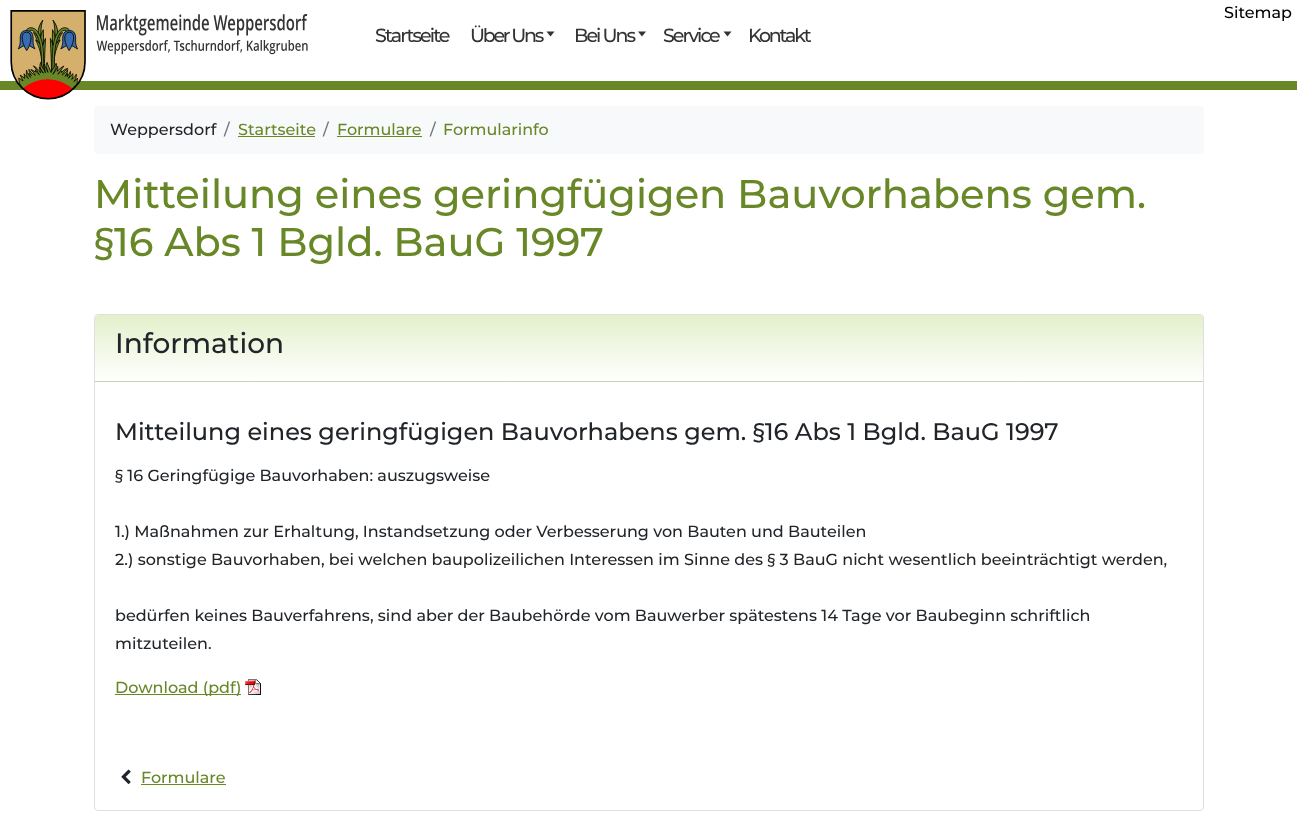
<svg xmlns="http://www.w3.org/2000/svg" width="1297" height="813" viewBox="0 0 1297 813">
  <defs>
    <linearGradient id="g1" gradientUnits="userSpaceOnUse" x1="649" y1="315" x2="649" y2="381"><stop offset="0" stop-color="#e3f0cb"/><stop offset="1" stop-color="#fff"/></linearGradient>
  </defs>
  <rect width="100%" height="100%" fill="#fff"/>
  <path d="M0 81h1297v9H0z" fill="#688727"/>
  <image x="10" y="10" width="298" height="90" href="img/1.png"/>
  <path d="M546.5 31.5H554.5L550.5 36.5Z" fill="#333"/>
  <path d="M638 31.5H646L642 36.5Z" fill="#333"/>
  <path d="M723.5 31.5H731.5L727.5 36.5Z" fill="#333"/>
  <rect x="94" y="106" width="1110" height="48" rx="4" fill="#f8f9fa"/>
  <path d="M238 136h77v1H238z" fill="#688727"/>
  <path d="M337 136h85v1H337z" fill="#688727"/>
  <rect x="94.5" y="314.5" width="1109" height="496" rx="3.5" fill="none" stroke="#dfdfdf"/>
  <path d="M98 315H1200C1201.5 315 1203 316.5 1203 318V381H95V318C95 316.5 96.5 315 98 315Z" fill="url(#g1)"/>
  <path d="M95 381h1108v1H95z" fill="#c7d2b2"/>
  <path d="M115 694h126v1H115z" fill="#688727"/>
  <image x="245" y="679" width="16" height="16" href="img/2.png"/>
  <image x="121" y="769" width="10" height="15" href="img/3.png"/>
  <path d="M141 784h85v1H141z" fill="#688727"/>
  <text x="375" y="42" font-family="Montserrat" font-size="19" font-weight="100" letter-spacing="-1.9" fill="#333">Startseite</text>
  <text x="470" y="42" font-family="Montserrat" font-size="19" font-weight="100" letter-spacing="-2.25" fill="#333">Über Uns</text>
  <g font-family="Montserrat" font-size="19" font-weight="100" letter-spacing="-2" fill="#333">
    <text x="574" y="42">Bei Uns</text>
    <text x="663" y="42">Service</text>
  </g>
  <text x="748" y="42" font-family="Montserrat" font-size="19" font-weight="100" letter-spacing="-2.25" fill="#333">Kontakt</text>
  <text x="1224" y="18" font-family="Montserrat" font-size="16" font-weight="100" fill="#000">Sitemap</text>
  <text x="110" y="135" font-family="Montserrat" font-size="16" font-weight="100" fill="#212529">Weppersdorf</text>
  <text x="224" y="135" font-family="Montserrat" font-size="16" font-weight="100" fill="#6c757d">/</text>
  <text x="238" y="135" font-family="Montserrat" font-size="16" font-weight="100" fill="#688727">Startseite</text>
  <text x="323" y="135" font-family="Montserrat" font-size="16" font-weight="100" fill="#6c757d">/</text>
  <text x="337" y="135" font-family="Montserrat" font-size="16" font-weight="100" fill="#688727">Formulare</text>
  <text x="430" y="135" font-family="Montserrat" font-size="16" font-weight="100" fill="#6c757d">/</text>
  <text x="443" y="135" font-family="Montserrat" font-size="16" font-weight="100" fill="#688727">Formularinfo</text>
  <g font-family="Montserrat" font-size="40" font-weight="100" fill="#688727">
    <text x="94" y="208">Mitteilung eines geringfügigen Bauvorhabens gem.</text>
    <text x="94" y="256">§16 Abs 1 Bgld. BauG 1997</text>
  </g>
  <text x="115" y="353" font-family="Montserrat" font-size="28" font-weight="100" fill="#212529">Information</text>
  <text x="115" y="440" font-family="Montserrat" font-size="24" font-weight="100" fill="#212529">Mitteilung eines geringfügigen Bauvorhabens gem. §16 Abs 1 Bgld. BauG 1997</text>
  <g font-family="Montserrat" font-size="16" font-weight="100" fill="#212529">
    <text x="115" y="481">§ 16 Geringfügige Bauvorhaben: auszugsweise</text>
    <text x="115" y="537">1.) Maßnahmen zur Erhaltung, Instandsetzung oder Verbesserung von Bauten und Bauteilen</text>
    <text x="115" y="565">2.) sonstige Bauvorhaben, bei welchen baupolizeilichen Interessen im Sinne des § 3 BauG nicht wesentlich beeinträchtigt werden,</text>
    <text x="115" y="621">bedürfen keines Bauverfahrens, sind aber der Baubehörde vom Bauwerber spätestens 14 Tage vor Baubeginn schriftlich</text>
    <text x="115" y="649">mitzuteilen.</text>
  </g>
  <g font-family="Montserrat" font-size="16" font-weight="100" fill="#688727">
    <text x="115" y="693">Download (pdf)</text>
    <text x="141" y="783">Formulare</text>
  </g>
</svg>
